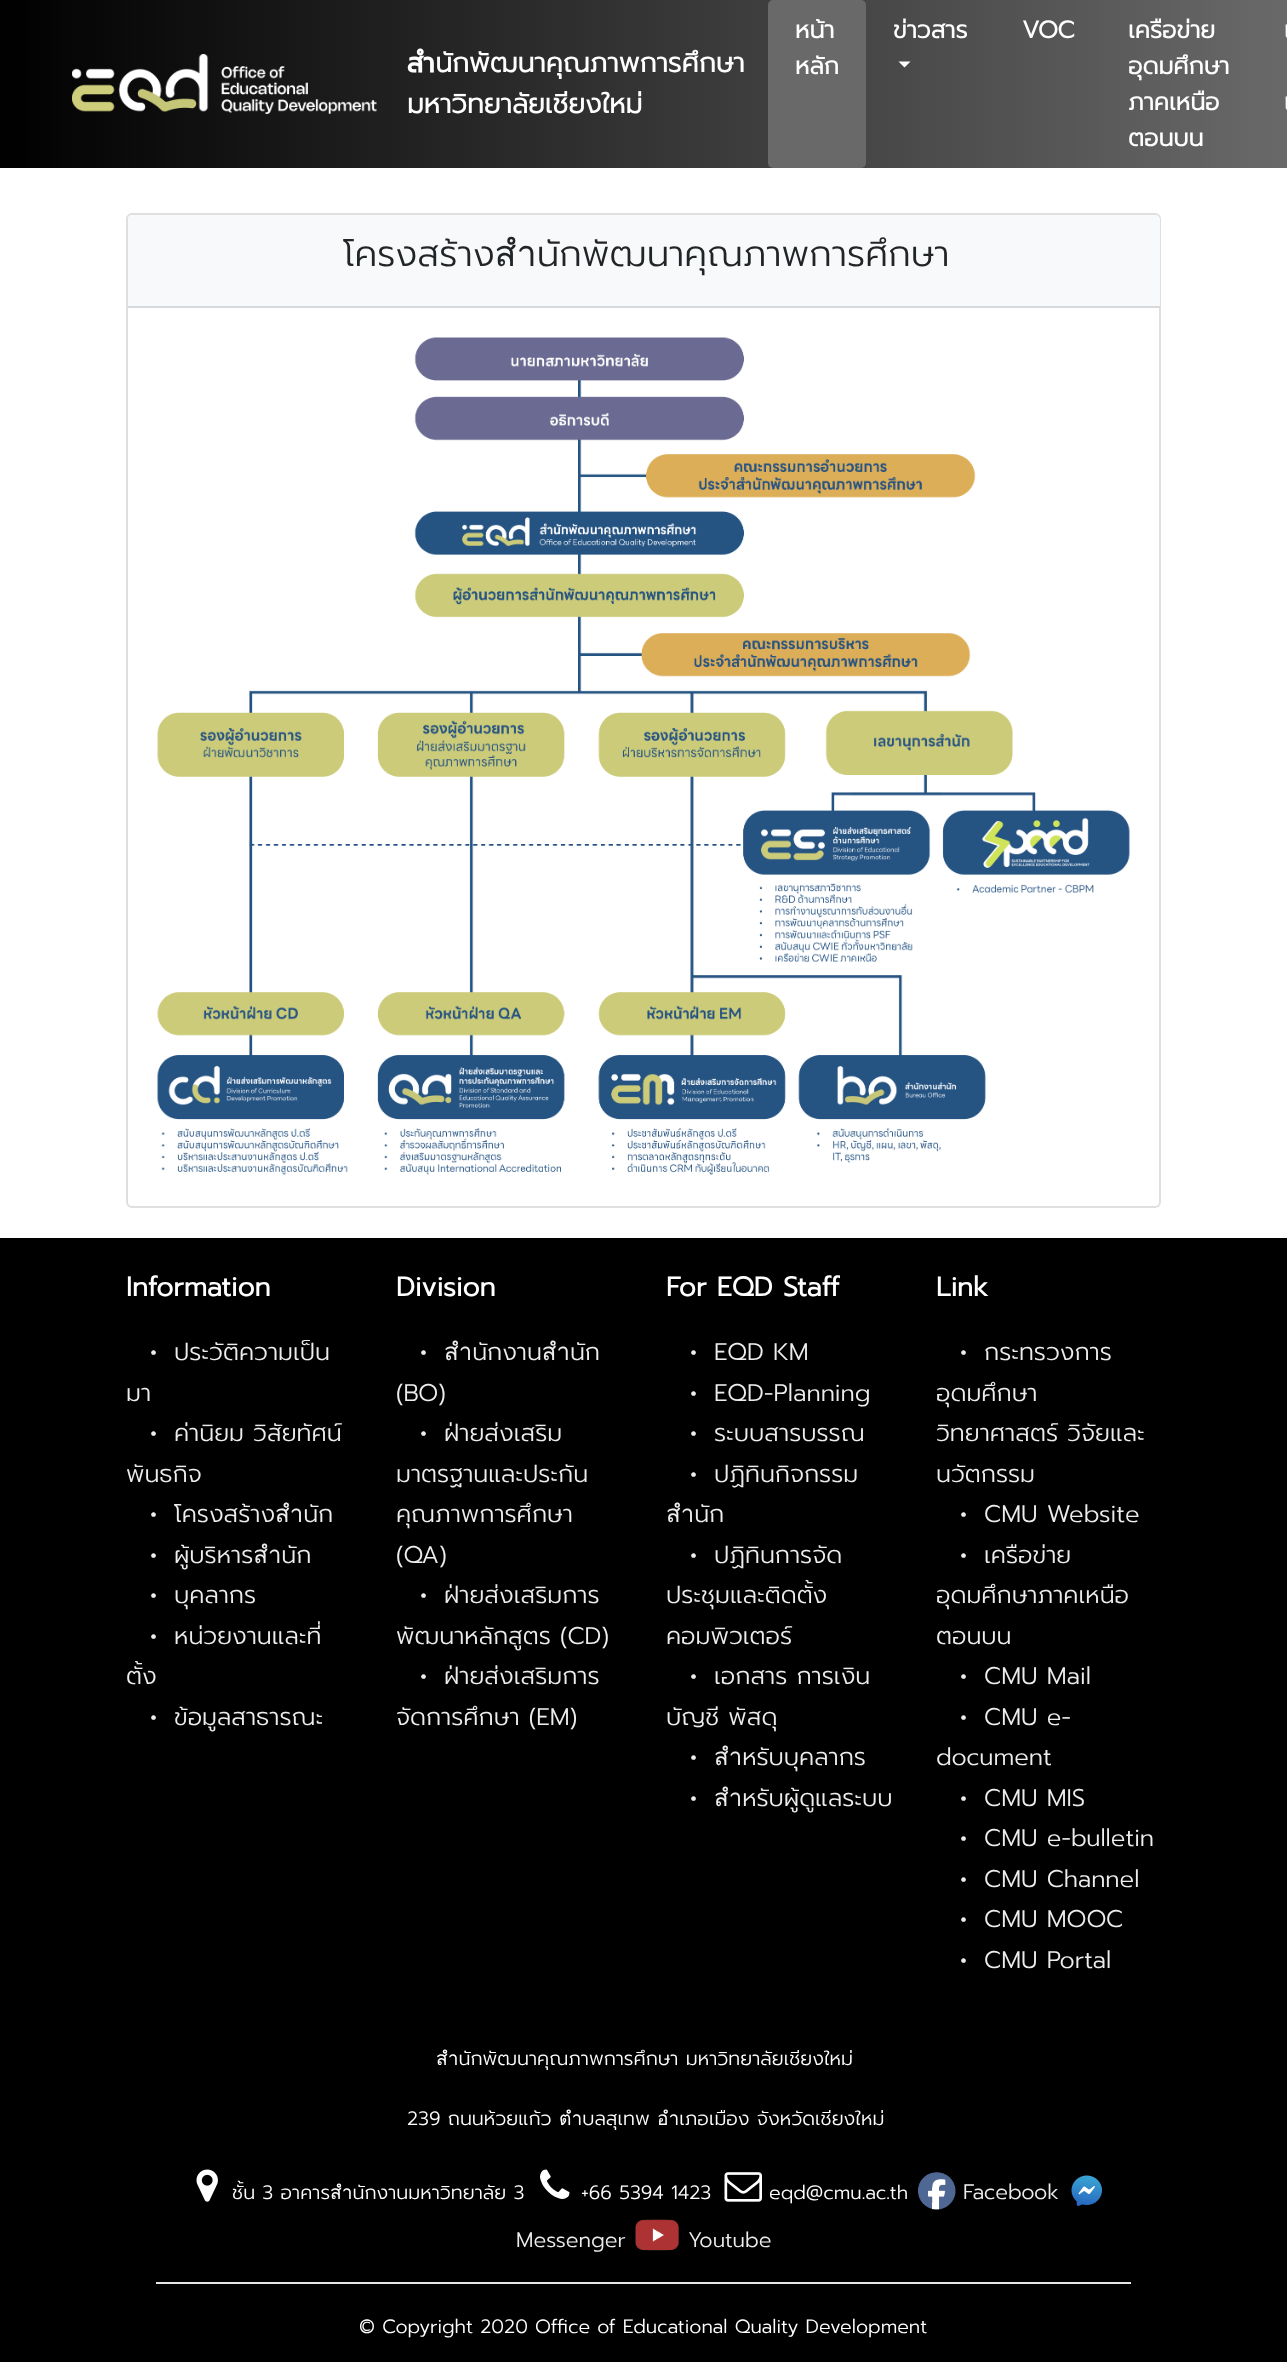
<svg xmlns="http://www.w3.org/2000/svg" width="1287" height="2362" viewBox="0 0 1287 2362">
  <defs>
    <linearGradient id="g1" gradientUnits="userSpaceOnUse" x1="1287" y1="84" x2="0" y2="84"><stop offset="0" stop-color="#696969"/><stop offset="1" stop-color="#000"/></linearGradient>
  </defs>
  <rect width="100%" height="100%" fill="#fff"/>
  <path d="M0 0h1287v168H0z" fill="url(#g1)"/>
  <image x="72" y="54" width="305" height="60" href="img/1.png"/>
  <rect x="768" width="98" height="168" rx="5" fill="#696969"/>
  <path d="M898.5 61.5H910.5L904.5 67.5Z" fill="#fff"/>
  <rect x="127" y="214" width="1033" height="993" rx="5" fill="none" stroke="#dfdfdf" stroke-width="2"/>
  <path d="M133 215H1155C1158 215 1160 217 1160 220V308H128V220C128 217 130 215 133 215Z" fill="#f8f9fa"/>
  <path d="M128 306h1032v2H128z" fill="#d9dadb"/>
  <image x="157" y="337" width="973" height="838" href="img/2.png"/>
  <path d="M0 1238h1287v1124H0z" fill="#000"/>
  <image x="196" y="2169" width="22" height="33" href="img/3.png"/>
  <image x="540" y="2169" width="30" height="30" href="img/4.png"/>
  <image x="724" y="2172" width="38" height="30" href="img/5.png"/>
  <image x="918" y="2172" width="38" height="38" href="img/6.png"/>
  <image x="1071" y="2175" width="31" height="31" href="img/7.png"/>
  <image x="635" y="2219" width="44" height="32" href="img/8.png"/>
  <path d="M156 2282h975v2H156z" fill="#e6e6e6"/>
  <g font-family="Prompt" font-size="27" font-weight="bold" fill="#fff">
    <text x="407" y="72">สำนักพัฒนาคุณภาพการศึกษา</text>
    <text x="407" y="113">มหาวิทยาลัยเชียงใหม่</text>
  </g>
  <g font-family="Prompt" font-size="24" font-weight="bold" fill="#fff">
    <text x="795" y="38">หน้า</text>
    <text x="795" y="74">หลัก</text>
    <text x="893" y="38">ข่าวสาร</text>
    <text x="1022" y="38">VOC</text>
    <text x="1128" y="38">เครือข่าย</text>
    <text x="1128" y="74">อุดมศึกษา</text>
    <text x="1128" y="110">ภาคเหนือ</text>
    <text x="1128" y="146">ตอนบน</text>
    <text x="1284" y="38">เ</text>
    <text x="1284" y="110">เ</text>
  </g>
  <text x="343" y="266" font-family="Prompt" font-size="36" font-weight="300" fill="#222527">โครงสร้างสำนักพัฒนาคุณภาพการศึกษา</text>
  <text x="126" y="1296" font-family="Prompt" font-size="27" font-weight="bold" fill="#fff">Information</text>
  <text x="150" y="1360" font-family="Prompt" font-size="24" font-weight="bold" fill="#ededed">•</text>
  <g font-family="Prompt" font-size="24" font-weight="300" fill="#ededed">
    <text x="174" y="1360">ประวัติความเป็น</text>
    <text x="126" y="1401">มา</text>
  </g>
  <text x="150" y="1441" font-family="Prompt" font-size="24" font-weight="bold" fill="#ededed">•</text>
  <g font-family="Prompt" font-size="24" font-weight="300" fill="#ededed">
    <text x="174" y="1441">ค่านิยม วิสัยทัศน์</text>
    <text x="126" y="1482">พันธกิจ</text>
  </g>
  <text x="150" y="1522" font-family="Prompt" font-size="24" font-weight="bold" fill="#ededed">•</text>
  <text x="174" y="1522" font-family="Prompt" font-size="24" font-weight="300" fill="#ededed">โครงสร้างสำนัก</text>
  <text x="150" y="1563" font-family="Prompt" font-size="24" font-weight="bold" fill="#ededed">•</text>
  <text x="174" y="1563" font-family="Prompt" font-size="24" font-weight="300" fill="#ededed">ผู้บริหารสำนัก</text>
  <text x="150" y="1603" font-family="Prompt" font-size="24" font-weight="bold" fill="#ededed">•</text>
  <text x="174" y="1603" font-family="Prompt" font-size="24" font-weight="300" fill="#ededed">บุคลากร</text>
  <text x="150" y="1644" font-family="Prompt" font-size="24" font-weight="bold" fill="#ededed">•</text>
  <g font-family="Prompt" font-size="24" font-weight="300" fill="#ededed">
    <text x="174" y="1644">หน่วยงานและที่</text>
    <text x="126" y="1684">ตั้ง</text>
  </g>
  <text x="150" y="1725" font-family="Prompt" font-size="24" font-weight="bold" fill="#ededed">•</text>
  <text x="174" y="1725" font-family="Prompt" font-size="24" font-weight="300" fill="#ededed">ข้อมูลสาธารณะ</text>
  <text x="396" y="1296" font-family="Prompt" font-size="27" font-weight="bold" fill="#fff">Division</text>
  <text x="420" y="1360" font-family="Prompt" font-size="24" font-weight="bold" fill="#ededed">•</text>
  <g font-family="Prompt" font-size="24" font-weight="300" fill="#ededed">
    <text x="444" y="1360">สำนักงานสำนัก</text>
    <text x="396" y="1401">(BO)</text>
  </g>
  <text x="420" y="1441" font-family="Prompt" font-size="24" font-weight="bold" fill="#ededed">•</text>
  <g font-family="Prompt" font-size="24" font-weight="300" fill="#ededed">
    <text x="444" y="1441">ฝ่ายส่งเสริม</text>
    <text x="396" y="1482">มาตรฐานและประกัน</text>
    <text x="396" y="1522">คุณภาพการศึกษา</text>
    <text x="396" y="1563">(QA)</text>
  </g>
  <text x="420" y="1603" font-family="Prompt" font-size="24" font-weight="bold" fill="#ededed">•</text>
  <g font-family="Prompt" font-size="24" font-weight="300" fill="#ededed">
    <text x="444" y="1603">ฝ่ายส่งเสริมการ</text>
    <text x="396" y="1644">พัฒนาหลักสูตร (CD)</text>
  </g>
  <text x="420" y="1684" font-family="Prompt" font-size="24" font-weight="bold" fill="#ededed">•</text>
  <g font-family="Prompt" font-size="24" font-weight="300" fill="#ededed">
    <text x="444" y="1684">ฝ่ายส่งเสริมการ</text>
    <text x="396" y="1725">จัดการศึกษา (EM)</text>
  </g>
  <text x="666" y="1296" font-family="Prompt" font-size="27" font-weight="bold" fill="#fff">For EQD Staff</text>
  <text x="690" y="1360" font-family="Prompt" font-size="24" font-weight="bold" fill="#ededed">•</text>
  <text x="714" y="1360" font-family="Prompt" font-size="24" font-weight="300" fill="#ededed">EQD KM</text>
  <text x="690" y="1401" font-family="Prompt" font-size="24" font-weight="bold" fill="#ededed">•</text>
  <text x="714" y="1401" font-family="Prompt" font-size="24" font-weight="300" fill="#ededed">EQD-Planning</text>
  <text x="690" y="1441" font-family="Prompt" font-size="24" font-weight="bold" fill="#ededed">•</text>
  <text x="714" y="1441" font-family="Prompt" font-size="24" font-weight="300" fill="#ededed">ระบบสารบรรณ</text>
  <text x="690" y="1482" font-family="Prompt" font-size="24" font-weight="bold" fill="#ededed">•</text>
  <g font-family="Prompt" font-size="24" font-weight="300" fill="#ededed">
    <text x="714" y="1482">ปฏิทินกิจกรรม</text>
    <text x="666" y="1522">สำนัก</text>
  </g>
  <text x="690" y="1563" font-family="Prompt" font-size="24" font-weight="bold" fill="#ededed">•</text>
  <g font-family="Prompt" font-size="24" font-weight="300" fill="#ededed">
    <text x="714" y="1563">ปฏิทินการจัด</text>
    <text x="666" y="1603">ประชุมและติดตั้ง</text>
    <text x="666" y="1644">คอมพิวเตอร์</text>
  </g>
  <text x="690" y="1684" font-family="Prompt" font-size="24" font-weight="bold" fill="#ededed">•</text>
  <g font-family="Prompt" font-size="24" font-weight="300" fill="#ededed">
    <text x="714" y="1684">เอกสาร การเงิน</text>
    <text x="666" y="1725">บัญชี พัสดุ</text>
  </g>
  <text x="690" y="1765" font-family="Prompt" font-size="24" font-weight="bold" fill="#ededed">•</text>
  <text x="714" y="1765" font-family="Prompt" font-size="24" font-weight="300" fill="#ededed">สำหรับบุคลากร</text>
  <text x="690" y="1806" font-family="Prompt" font-size="24" font-weight="bold" fill="#ededed">•</text>
  <text x="714" y="1806" font-family="Prompt" font-size="24" font-weight="300" fill="#ededed">สำหรับผู้ดูแลระบบ</text>
  <text x="936" y="1296" font-family="Prompt" font-size="27" font-weight="bold" fill="#fff">Link</text>
  <text x="960" y="1360" font-family="Prompt" font-size="24" font-weight="bold" fill="#ededed">•</text>
  <g font-family="Prompt" font-size="24" font-weight="300" fill="#ededed">
    <text x="984" y="1360">กระทรวงการ</text>
    <text x="936" y="1401">อุดมศึกษา</text>
    <text x="936" y="1441">วิทยาศาสตร์ วิจัยและ</text>
    <text x="936" y="1482">นวัตกรรม</text>
  </g>
  <text x="960" y="1522" font-family="Prompt" font-size="24" font-weight="bold" fill="#ededed">•</text>
  <text x="984" y="1522" font-family="Prompt" font-size="24" font-weight="300" fill="#ededed">CMU Website</text>
  <text x="960" y="1563" font-family="Prompt" font-size="24" font-weight="bold" fill="#ededed">•</text>
  <g font-family="Prompt" font-size="24" font-weight="300" fill="#ededed">
    <text x="984" y="1563">เครือข่าย</text>
    <text x="936" y="1603">อุดมศึกษาภาคเหนือ</text>
    <text x="936" y="1644">ตอนบน</text>
  </g>
  <text x="960" y="1684" font-family="Prompt" font-size="24" font-weight="bold" fill="#ededed">•</text>
  <text x="984" y="1684" font-family="Prompt" font-size="24" font-weight="300" fill="#ededed">CMU Mail</text>
  <text x="960" y="1725" font-family="Prompt" font-size="24" font-weight="bold" fill="#ededed">•</text>
  <g font-family="Prompt" font-size="24" font-weight="300" fill="#ededed">
    <text x="984" y="1725">CMU e-</text>
    <text x="936" y="1765">document</text>
  </g>
  <text x="960" y="1806" font-family="Prompt" font-size="24" font-weight="bold" fill="#ededed">•</text>
  <text x="984" y="1806" font-family="Prompt" font-size="24" font-weight="300" fill="#ededed">CMU MIS</text>
  <text x="960" y="1846" font-family="Prompt" font-size="24" font-weight="bold" fill="#ededed">•</text>
  <text x="984" y="1846" font-family="Prompt" font-size="24" font-weight="300" fill="#ededed">CMU e-bulletin</text>
  <text x="960" y="1887" font-family="Prompt" font-size="24" font-weight="bold" fill="#ededed">•</text>
  <text x="984" y="1887" font-family="Prompt" font-size="24" font-weight="300" fill="#ededed">CMU Channel</text>
  <text x="960" y="1927" font-family="Prompt" font-size="24" font-weight="bold" fill="#ededed">•</text>
  <text x="984" y="1927" font-family="Prompt" font-size="24" font-weight="300" fill="#ededed">CMU MOOC</text>
  <text x="960" y="1968" font-family="Prompt" font-size="24" font-weight="bold" fill="#ededed">•</text>
  <text x="984" y="1968" font-family="Prompt" font-size="24" font-weight="300" fill="#ededed">CMU Portal</text>
  <g font-family="Prompt" font-size="19.2" font-weight="300" fill="#fff">
    <text x="436" y="2065">สำนักพัฒนาคุณภาพการศึกษา มหาวิทยาลัยเชียงใหม่</text>
    <text x="407" y="2125">239 ถนนห้วยแก้ว ตำบลสุเทพ อำเภอเมือง จังหวัดเชียงใหม่</text>
    <text x="232" y="2199">ชั้น 3 อาคารสำนักงานมหาวิทยาลัย 3</text>
    <text x="581" y="2199">+66 5394 1423</text>
    <text x="769" y="2199">eqd@cmu.ac.th</text>
  </g>
  <g font-family="Prompt" font-size="21" font-weight="300" fill="#ededed">
    <text x="963" y="2199">Facebook</text>
    <text x="516" y="2247">Messenger</text>
    <text x="688" y="2247">Youtube</text>
  </g>
  <text x="359" y="2333" font-family="Prompt" font-size="19.2" font-weight="300" fill="#fff">© Copyright 2020 Office of Educational Quality Development</text>
</svg>
